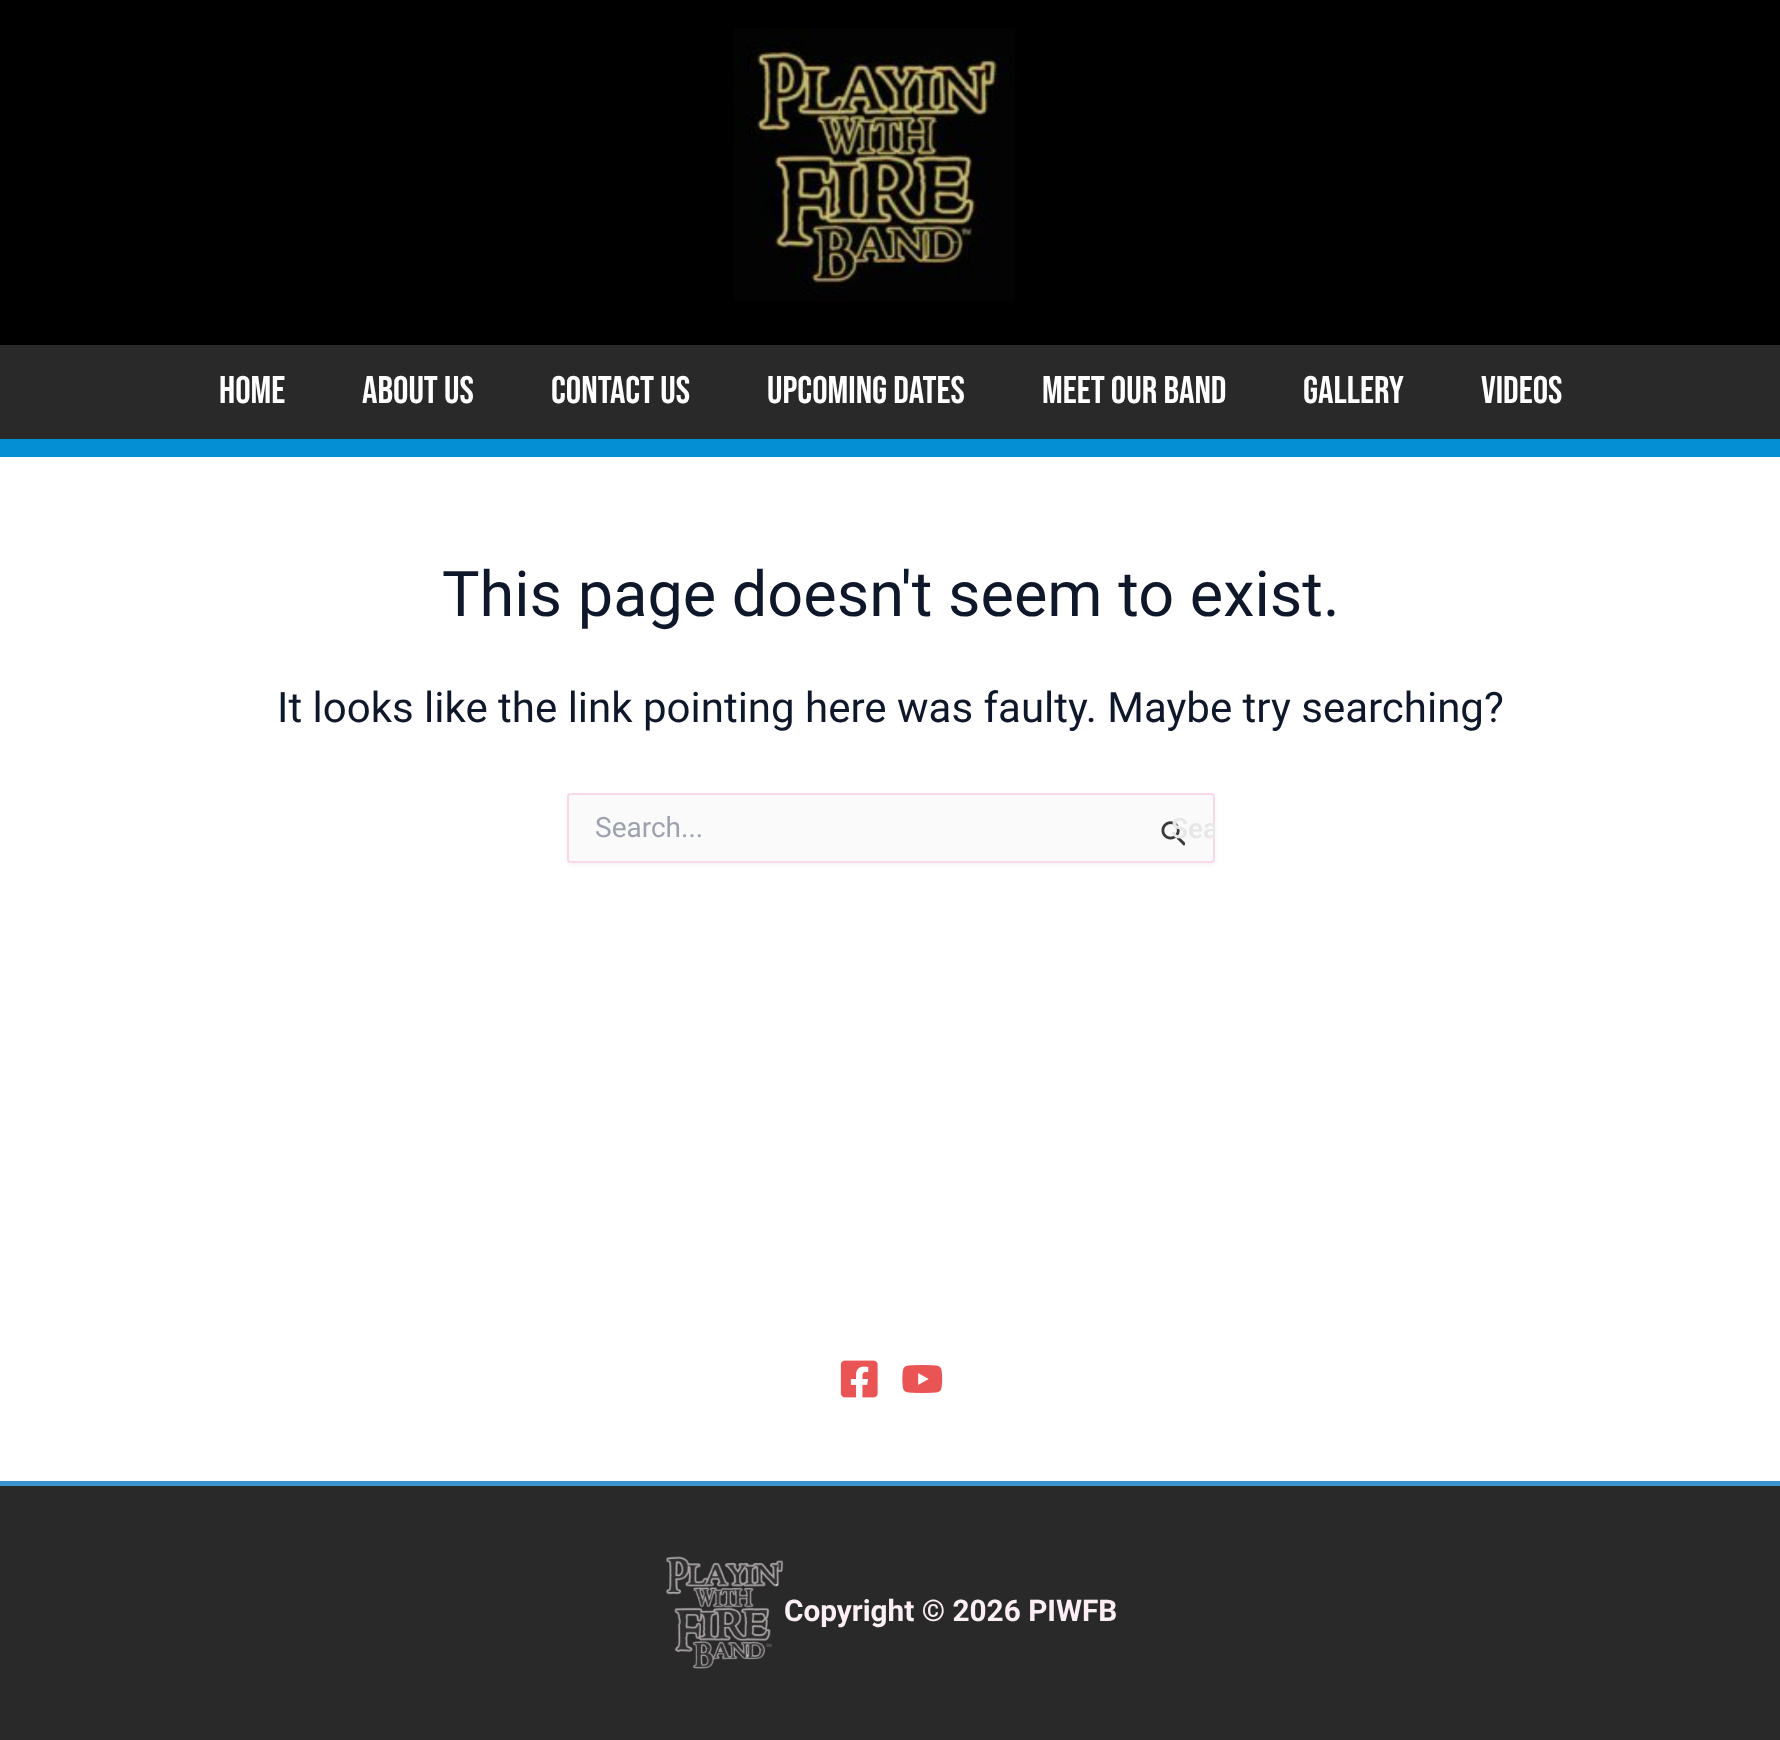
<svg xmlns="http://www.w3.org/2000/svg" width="1780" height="1740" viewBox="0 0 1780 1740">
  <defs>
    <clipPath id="clip1"><rect x="1136" y="793" width="79" height="73" rx="4"/></clipPath>
  </defs>
  <rect width="100%" height="100%" fill="#fff"/>
  <path d="M0 0h1780v345H0z" fill="#000"/>
  <image x="734" y="28" width="281" height="273" href="img/1.png"/>
  <path d="M0 345h1780v94H0z" fill="#292929"/>
  <path d="M0 439h1780v18H0z" fill="#048fd4"/>
  <rect x="567" y="795" width="648" height="70" rx="4" fill="#0000000d" filter="blur(2px)"/>
  <rect x="568" y="794" width="646" height="68" rx="3" fill="#fafafa" stroke="#fad8e9" stroke-width="2"/>
  <image x="1161" y="821" width="24" height="25" href="img/2.png"/>
  <image x="840" y="1360" width="38" height="38" href="img/3.png"/>
  <image x="902" y="1365" width="41" height="28" href="img/4.png"/>
  <path d="M0 1486h1780v254H0z" fill="#292929"/>
  <path d="M0 1481h1780v5H0z" fill="#3b93cd"/>
  <image x="665" y="1556" width="119" height="113" href="img/5.png"/>
  <g font-family="Bebas Neue" font-size="38.5" fill="#fff">
    <text x="219" y="403">Home</text>
    <text x="362" y="403">About Us</text>
    <text x="551" y="403">Contact Us</text>
    <text x="767" y="403">Upcoming Dates</text>
    <text x="1042" y="403">Meet Our Band</text>
    <text x="1303" y="403">Gallery</text>
    <text x="1481" y="403">Videos</text>
  </g>
  <text x="442" y="616" font-family="Roboto" font-size="63" fill="#0f172a">This page doesn't seem to exist.</text>
  <text x="277" y="722" font-family="Roboto" font-size="42" fill="#0f172a">It looks like the link pointing here was faulty. Maybe try searching?</text>
  <text x="595" y="837" font-family="Roboto" font-size="28" fill="#9ca3af">Search...</text>
  <g clip-path="url(#clip1)">
    <text x="1171" y="838" font-family="Roboto" font-size="28" font-weight="500" fill="#e8e6e7">Sea</text>
  </g>
  <text x="784" y="1621" font-family="Roboto" font-size="29.75" font-weight="bold" fill="#fceef5">Copyright © 2026 PIWFB</text>
</svg>
